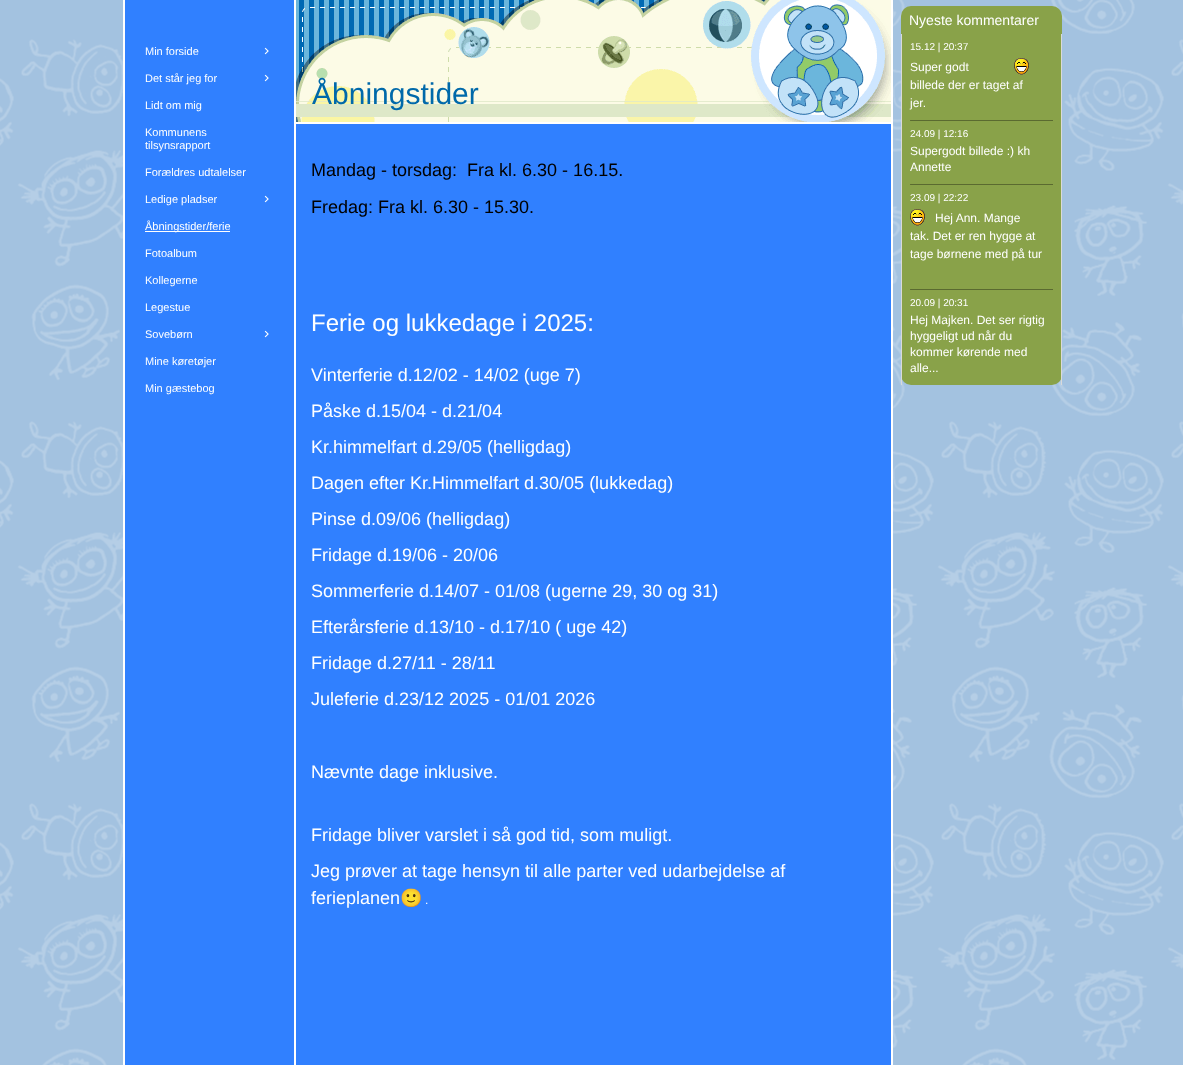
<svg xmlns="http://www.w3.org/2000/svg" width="1183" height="1065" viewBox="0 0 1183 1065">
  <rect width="100%" height="100%" fill="#a3c2e0"/>
  <image x="0" y="0" width="1183" height="1065" href="img/1.png"/>
  <path d="M123 0h770v1065H123z" fill="#fff"/>
  <path d="M125 0h169v1065H125z" fill="#3080ff"/>
  <image x="264" y="47" width="5" height="8" href="img/2.png"/>
  <image x="264" y="74" width="5" height="8" href="img/2.png"/>
  <image x="264" y="195" width="5" height="8" href="img/2.png"/>
  <path d="M145 231h85v1H145z" fill="#fff"/>
  <image x="264" y="330" width="5" height="8" href="img/2.png"/>
  <path d="M296 124h595v941H296z" fill="#3080ff"/>
  <image x="296" y="0" width="595" height="122" href="img/3.png"/>
  <rect x="901" y="6" width="161" height="379" rx="10" fill="#89a249"/>
  <path d="M1061 34h1v351H1061z" fill="#dadada"/>
  <path d="M901 34h1v351H901z" fill="#dadada"/>
  <image x="1014" y="58" width="15" height="17" href="img/4.png"/>
  <image x="910" y="120" width="143" height="1" href="img/5.png"/>
  <image x="910" y="184" width="143" height="1" href="img/5.png"/>
  <image x="910" y="209" width="15" height="17" href="img/4.png"/>
  <image x="910" y="289" width="143" height="1" href="img/5.png"/>
  <g font-family="Liberation Sans" font-size="11" fill="#fff">
    <text x="145" y="55">Min forside</text>
    <text x="145" y="82">Det står jeg for</text>
    <text x="145" y="109">Lidt om mig</text>
    <text x="145" y="136">Kommunens</text>
    <text x="145" y="149">tilsynsrapport</text>
    <text x="145" y="176">Forældres udtalelser</text>
    <text x="145" y="203">Ledige pladser</text>
    <text x="145" y="230">Åbningstider/ferie</text>
    <text x="145" y="257">Fotoalbum</text>
    <text x="145" y="284">Kollegerne</text>
    <text x="145" y="311">Legestue</text>
    <text x="145" y="338">Sovebørn</text>
    <text x="145" y="365">Mine køretøjer</text>
    <text x="145" y="392">Min gæstebog</text>
  </g>
  <text x="312" y="104" font-family="Liberation Sans" font-size="30" fill="#0069aa">Åbningstider</text>
  <g font-family="Liberation Sans" font-size="18" fill="#000">
    <text x="311" y="176" xml:space="preserve">Mandag - torsdag:  Fra kl. 6.30 - 16.15.</text>
    <text x="311" y="213">Fredag: Fra kl. 6.30 - 15.30.</text>
  </g>
  <text x="311" y="331" font-family="Liberation Sans" font-size="24" fill="#fff">Ferie og lukkedage i 2025:</text>
  <g font-family="Liberation Sans" font-size="18" fill="#fff">
    <text x="311" y="381">Vinterferie d.12/02 - 14/02 (uge 7)</text>
    <text x="311" y="417">Påske d.15/04 - d.21/04</text>
    <text x="311" y="453">Kr.himmelfart d.29/05 (helligdag)</text>
    <text x="311" y="489">Dagen efter Kr.Himmelfart d.30/05 (lukkedag)</text>
    <text x="311" y="525">Pinse d.09/06 (helligdag)</text>
    <text x="311" y="561">Fridage d.19/06 - 20/06</text>
    <text x="311" y="597">Sommerferie d.14/07 - 01/08 (ugerne 29, 30 og 31)</text>
    <text x="311" y="633">Efterårsferie d.13/10 - d.17/10 ( uge 42)</text>
    <text x="311" y="669">Fridage d.27/11 - 28/11</text>
    <text x="311" y="705">Juleferie d.23/12 2025 - 01/01 2026</text>
    <text x="311" y="778">Nævnte dage inklusive.</text>
    <text x="311" y="841">Fridage bliver varslet i så god tid, som muligt.</text>
    <text x="311" y="877">Jeg prøver at tage hensyn til alle parter ved udarbejdelse af</text>
    <text x="311" y="904">ferieplanen</text>
  </g>
  <text x="400" y="904" font-family="Noto Color Emoji" font-size="18" fill="#fff">🙂</text>
  <text x="425" y="904" font-family="Liberation Sans" font-size="12" fill="#fff">.</text>
  <text x="909" y="25" font-family="Liberation Sans" font-size="14" fill="#fff">Nyeste kommentarer</text>
  <text x="910" y="50" font-family="Liberation Sans" font-size="10" fill="#fff">15.12 | 20:37</text>
  <g font-family="Liberation Sans" font-size="12" fill="#fff">
    <text x="910" y="71">Super godt</text>
    <text x="910" y="89">billede der er taget af</text>
    <text x="910" y="107">jer.</text>
  </g>
  <text x="910" y="137" font-family="Liberation Sans" font-size="10" fill="#fff">24.09 | 12:16</text>
  <g font-family="Liberation Sans" font-size="12" fill="#fff">
    <text x="910" y="155">Supergodt billede :) kh</text>
    <text x="910" y="171">Annette</text>
  </g>
  <text x="910" y="201" font-family="Liberation Sans" font-size="10" fill="#fff">23.09 | 22:22</text>
  <g font-family="Liberation Sans" font-size="12" fill="#fff">
    <text x="935" y="222">Hej Ann. Mange</text>
    <text x="910" y="240">tak. Det er ren hygge at</text>
    <text x="910" y="258">tage børnene med på tur</text>
  </g>
  <text x="910" y="306" font-family="Liberation Sans" font-size="10" fill="#fff">20.09 | 20:31</text>
  <g font-family="Liberation Sans" font-size="12" fill="#fff">
    <text x="910" y="324">Hej Majken. Det ser rigtig</text>
    <text x="910" y="340">hyggeligt ud når du</text>
    <text x="910" y="356">kommer kørende med</text>
    <text x="910" y="372">alle...</text>
  </g>
</svg>
